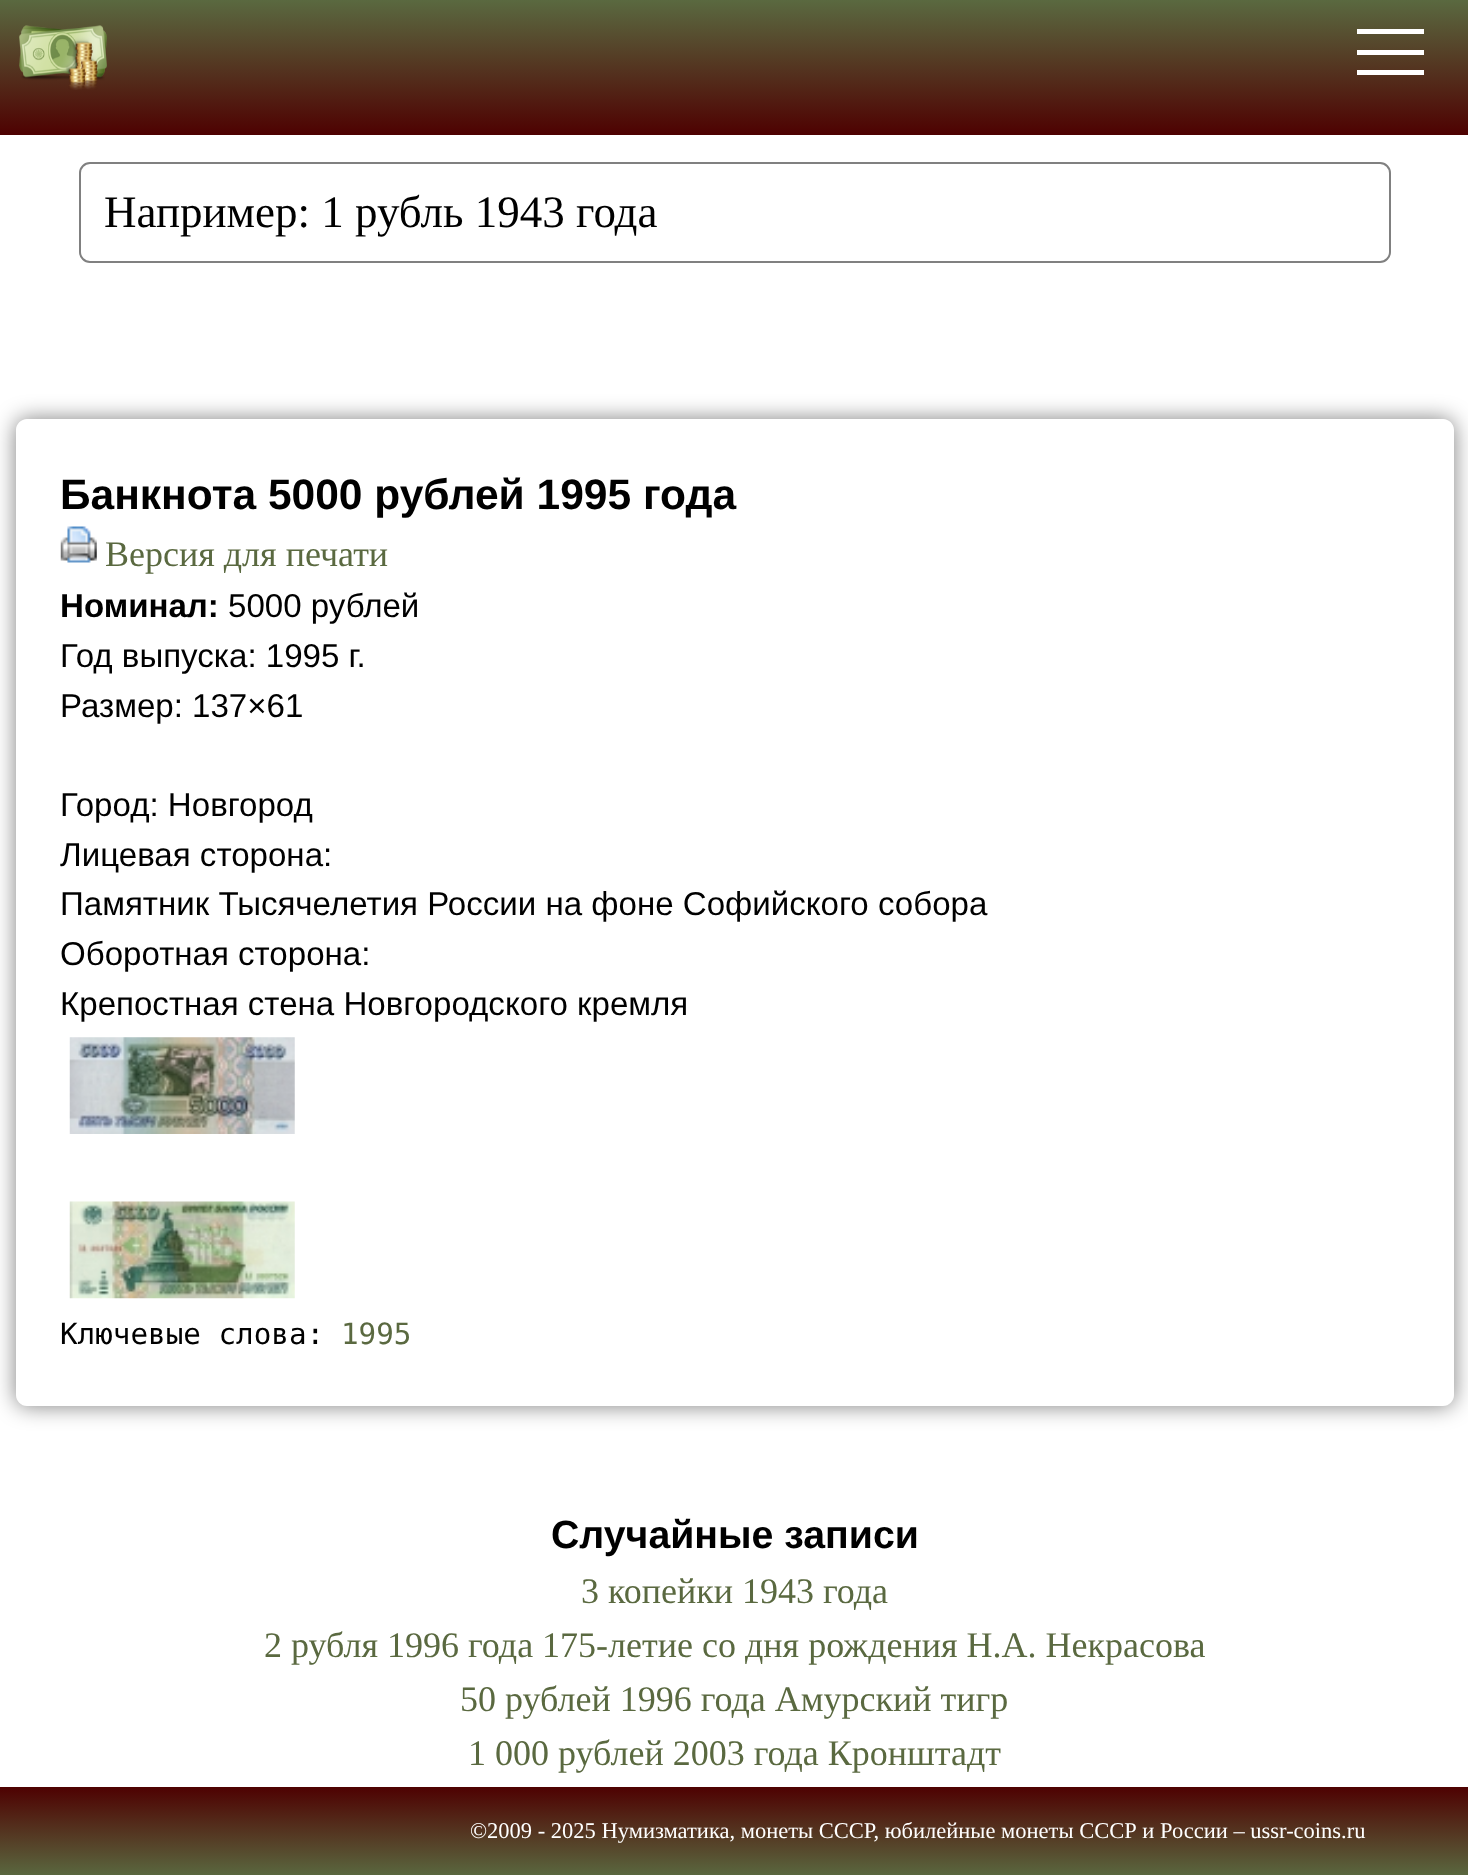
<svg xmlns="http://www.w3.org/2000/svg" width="1468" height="1875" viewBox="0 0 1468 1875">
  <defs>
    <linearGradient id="g1" gradientUnits="userSpaceOnUse" x1="735" y1="135" x2="735" y2="0"><stop offset="0" stop-color="#4e0101"/><stop offset="1" stop-color="#5a6940"/></linearGradient>
    <clipPath id="clip1"><path d="M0 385H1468V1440H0ZM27 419H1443C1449 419 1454 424 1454 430V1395C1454 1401 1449 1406 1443 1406H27C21 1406 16 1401 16 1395V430C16 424 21 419 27 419Z" clip-rule="evenodd"/></clipPath>
    <linearGradient id="g2" gradientUnits="userSpaceOnUse" x1="735" y1="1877" x2="735" y2="1787"><stop offset="0" stop-color="#5a6940"/><stop offset="1" stop-color="#4e0101"/></linearGradient>
  </defs>
  <rect width="100%" height="100%" fill="#fff"/>
  <path d="M0 0h1468v135H0z" fill="url(#g1)"/>
  <image x="19" y="25" width="88" height="65" href="img/1.png"/>
  <path d="M1357 29h67v5H1357z" fill="#fff"/>
  <path d="M1357 50h67v5H1357z" fill="#fff"/>
  <path d="M1357 70h67v5H1357z" fill="#fff"/>
  <rect x="80" y="163" width="1310" height="99" rx="10" fill="none" stroke="#808080" stroke-width="2"/>
  <g clip-path="url(#clip1)">
    <rect x="16" y="419" width="1438" height="987" rx="11" fill="#00000080" filter="blur(11px)"/>
  </g>
  <image x="60" y="526" width="37" height="37" href="img/2.png"/>
  <image x="69" y="1037" width="226" height="97" href="img/3.png"/>
  <image x="69" y="1201" width="226" height="98" href="img/4.png"/>
  <path d="M0 1787h1468v88H0z" fill="url(#g2)"/>
  <text x="104" y="227" font-family="Liberation Serif" font-size="45" fill="#000">Например: 1 рубль 1943 года</text>
  <text x="60" y="509" font-family="Liberation Sans" font-size="42.5" font-weight="bold" fill="#000">Банкнота 5000 рублей 1995 года</text>
  <text x="105" y="566" font-family="Liberation Serif" font-size="36" fill="#5a6940">Версия для печати</text>
  <text x="60" y="617" font-family="Liberation Sans" font-size="33.1" font-weight="bold" fill="#000">Номинал:</text>
  <g font-family="Liberation Sans" font-size="33.1" fill="#000">
    <text x="228" y="617">5000 рублей</text>
    <text x="60" y="667">Год выпуска: 1995 г.</text>
    <text x="60" y="717">Размер: 137×61</text>
    <text x="60" y="816">Город: Новгород</text>
    <text x="60" y="866">Лицевая сторона:</text>
    <text x="60" y="915">Памятник Тысячелетия России на фоне Софийского собора</text>
    <text x="60" y="965">Оборотная сторона:</text>
    <text x="60" y="1015">Крепостная стена Новгородского кремля</text>
  </g>
  <text x="60" y="1344" font-family="DejaVu Sans Mono" font-size="29.25" fill="#000">Ключевые слова:</text>
  <text x="341" y="1344" font-family="DejaVu Sans Mono" font-size="29.25" fill="#5a6940">1995</text>
  <text x="551" y="1548" font-family="Liberation Sans" font-size="39.25" font-weight="bold" fill="#000">Случайные записи</text>
  <g font-family="Liberation Serif" font-size="36" fill="#5a6940">
    <text x="581" y="1603">3 копейки 1943 года</text>
    <text x="264" y="1657">2 рубля 1996 года 175-летие со дня рождения Н.А. Некрасова</text>
    <text x="460" y="1711">50 рублей 1996 года Амурский тигр</text>
    <text x="468" y="1765">1 000 рублей 2003 года Кронштадт</text>
  </g>
  <text x="470" y="1838" font-family="Liberation Serif" font-size="22.5" fill="#fff">©2009 - 2025 Нумизматика, монеты СССР, юбилейные монеты СССР и России – ussr-coins.ru</text>
</svg>
